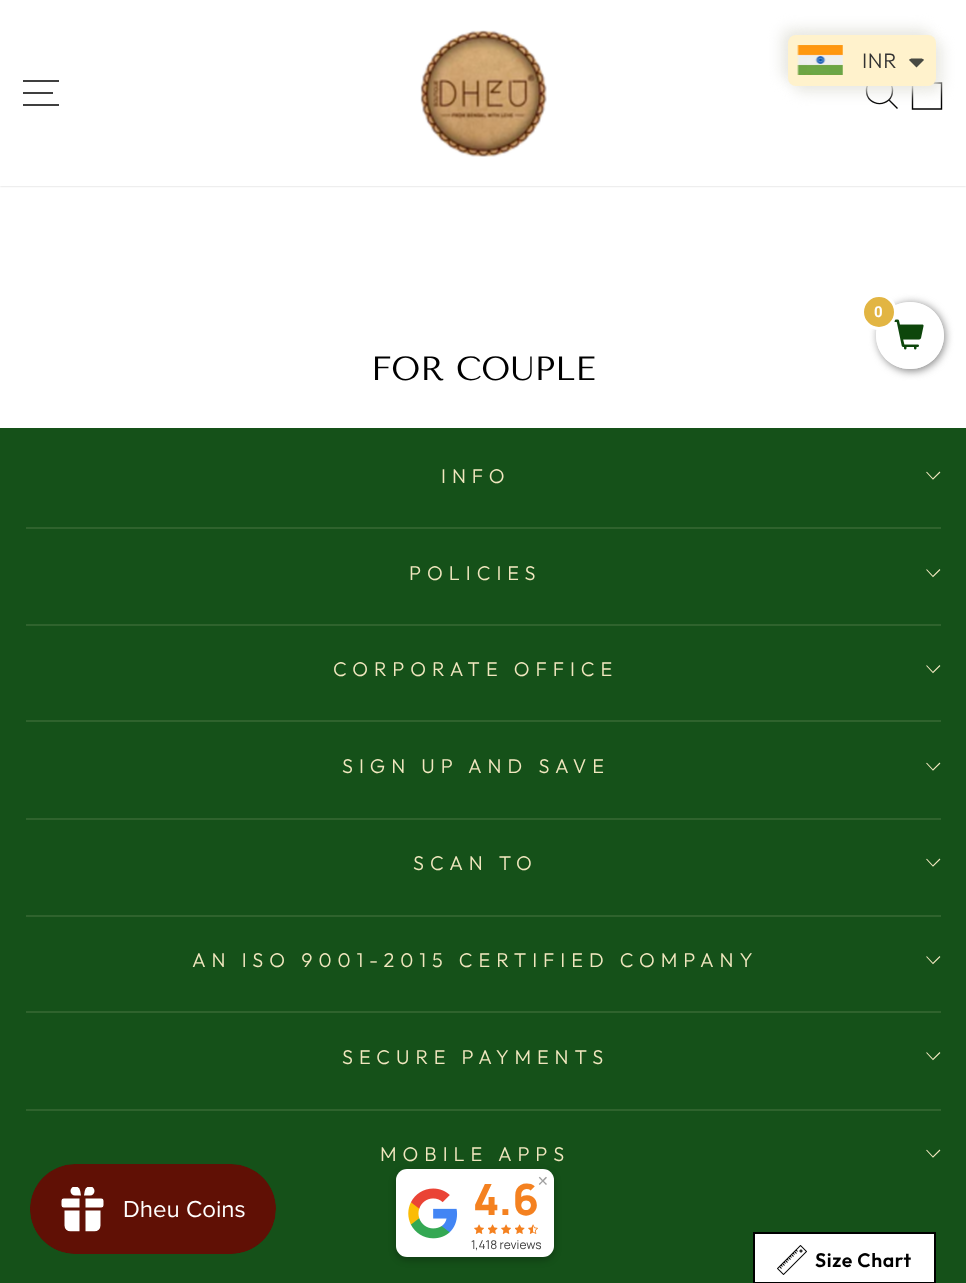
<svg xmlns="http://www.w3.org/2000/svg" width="966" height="1283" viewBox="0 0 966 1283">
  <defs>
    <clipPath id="clip1"><path d="M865 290H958V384H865ZM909.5 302H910.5C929 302 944 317 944 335.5C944 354 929 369 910.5 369H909.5C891 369 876 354 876 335.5C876 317 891 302 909.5 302Z" clip-rule="evenodd"/></clipPath>
  </defs>
  <rect width="100%" height="100%" fill="#fff"/>
  <path d="M0 0h966v186H0z" fill="#00000033" filter="blur(1px)"/>
  <path d="M0 0h966v186H0z" fill="#fff"/>
  <path d="M892.5 90.5C892.5 108 866.5 108 866.5 90.5C866.5 73.5 892.5 73.5 892.5 90.5ZM897.5 108.5L889 100" fill="none" stroke="#000" stroke-width="1.4"/>
  <path d="M912.5 83H941.5V109H912.5ZM920 83C920 78 923 77 927 77C931 77 934 78 934 83" fill="none" stroke="#000" stroke-width="1.4"/>
  <rect x="782" y="29" width="148" height="51" rx="8" fill="#e8e8e2" filter="blur(7px)"/>
  <rect x="794" y="41" width="148" height="51" rx="8" fill="#e8e8e2" filter="blur(7px)"/>
  <rect x="788" y="35" width="148" height="51" rx="8" fill="#fff2cc"/>
  <image x="797" y="45" width="46" height="30" href="img/1.png"/>
  <path d="M912 58.5C911 58.5 909.5 59 909 60L916.5 67.5L924 60C923.5 59 922 58.5 921 58.5Z" fill="#474942"/>
  <g clip-path="url(#clip1)">
    <rect x="878" y="303" width="67" height="68" rx="33.5" fill="#808080" filter="blur(4px)"/>
  </g>
  <rect x="876" y="302" width="68" height="67" rx="33.5" fill="#ffffffe6"/>
  <image x="894" y="319" width="30" height="31" href="img/2.png"/>
  <circle cx="879" cy="312" r="16.5" fill="#e2b543" stroke="#fff" stroke-width="3"/>
  <path d="M23 81H59M23 93H53M23 105H59" fill="none" stroke="#000" stroke-width="1.4"/>
  <image x="420" y="30" width="127" height="127" href="img/3.png"/>
  <path d="M0 428h966v855H0z" fill="#155119"/>
  <path d="M926.5 472L933 479L940 472" fill="none" stroke="#f1e7bf" stroke-width="1.1"/>
  <path d="M26 527h915v2H26z" fill="#2f632d"/>
  <path d="M926.5 569.5L933 576.5L940 569.5" fill="none" stroke="#f1e7bf" stroke-width="1.1"/>
  <path d="M26 624h915v2H26z" fill="#2f632d"/>
  <path d="M926.5 665.5L933 672.5L940 665.5" fill="none" stroke="#f1e7bf" stroke-width="1.1"/>
  <path d="M26 720h915v2H26z" fill="#2f632d"/>
  <path d="M926.5 763L933 770L940 763" fill="none" stroke="#f1e7bf" stroke-width="1.1"/>
  <path d="M26 818h915v2H26z" fill="#2f632d"/>
  <path d="M926.5 859L933 866L940 859" fill="none" stroke="#f1e7bf" stroke-width="1.1"/>
  <path d="M26 915h915v2H26z" fill="#2f632d"/>
  <path d="M926.5 956.5L933 963.5L940 956.5" fill="none" stroke="#f1e7bf" stroke-width="1.1"/>
  <path d="M26 1011h915v2H26z" fill="#2f632d"/>
  <path d="M926.5 1052.5L933 1059.5L940 1052.5" fill="none" stroke="#f1e7bf" stroke-width="1.1"/>
  <path d="M26 1109h915v2H26z" fill="#2f632d"/>
  <path d="M926.5 1150L933 1157L940 1150" fill="none" stroke="#f1e7bf" stroke-width="1.1"/>
  <image x="30" y="1164" width="246" height="90" href="img/4.png"/>
  <rect x="396" y="1172" width="158" height="88" rx="11" fill="#00000042" filter="blur(3.5px)"/>
  <rect x="396" y="1169" width="158" height="88" rx="11" fill="#fff"/>
  <image x="408" y="1188" width="50" height="51" href="img/5.png"/>
  <image x="474" y="1224" width="10" height="10" href="img/6.png"/>
  <image x="488" y="1224" width="10" height="10" href="img/7.png"/>
  <image x="501" y="1224" width="10" height="10" href="img/6.png"/>
  <image x="515" y="1224" width="10" height="10" href="img/7.png"/>
  <image x="528" y="1224" width="10" height="10" href="img/8.png"/>
  <path d="M754 1233h181v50H754z" fill="#fff" stroke="#000" stroke-width="2"/>
  <image x="777" y="1245" width="30" height="30" href="img/9.png"/>
  <text x="862" y="68" font-family="Outfit" font-size="21" font-weight="300" letter-spacing="0.6" fill="#333">INR</text>
  <text x="874" y="317" font-family="Roboto" font-size="15" font-weight="bold" letter-spacing="0.6" fill="#fff">0</text>
  <text x="371" y="380" font-family="Tenor Sans" font-size="33.5" fill="#000">FOR COUPLE</text>
  <g font-family="Outfit" font-size="19.9" font-weight="300" letter-spacing="5.95" fill="#f1e7bf">
    <text x="441" y="483">INFO</text>
    <text x="409" y="580">POLICIES</text>
    <text x="333" y="676">CORPORATE OFFICE</text>
    <text x="342" y="773">SIGN UP AND SAVE</text>
    <text x="413" y="870">SCAN TO</text>
    <text x="192" y="967">AN ISO 9001-2015 CERTIFIED COMPANY</text>
    <text x="342" y="1064">SECURE PAYMENTS</text>
    <text x="380" y="1161">MOBILE APPS</text>
  </g>
  <text x="537" y="1186" font-family="DejaVu Sans" font-size="14" fill="#a0a0a0">✕</text>
  <text x="473" y="1215" font-family="Manrope" font-size="43" font-weight="800" fill="#f48120">4.6</text>
  <text x="471" y="1249" font-family="Manrope" font-size="12" fill="#404040">1,418 reviews</text>
  <text x="815" y="1267" font-family="Outfit" font-size="19.5" font-weight="600" letter-spacing="0.6" fill="#000">Size Chart</text>
</svg>
